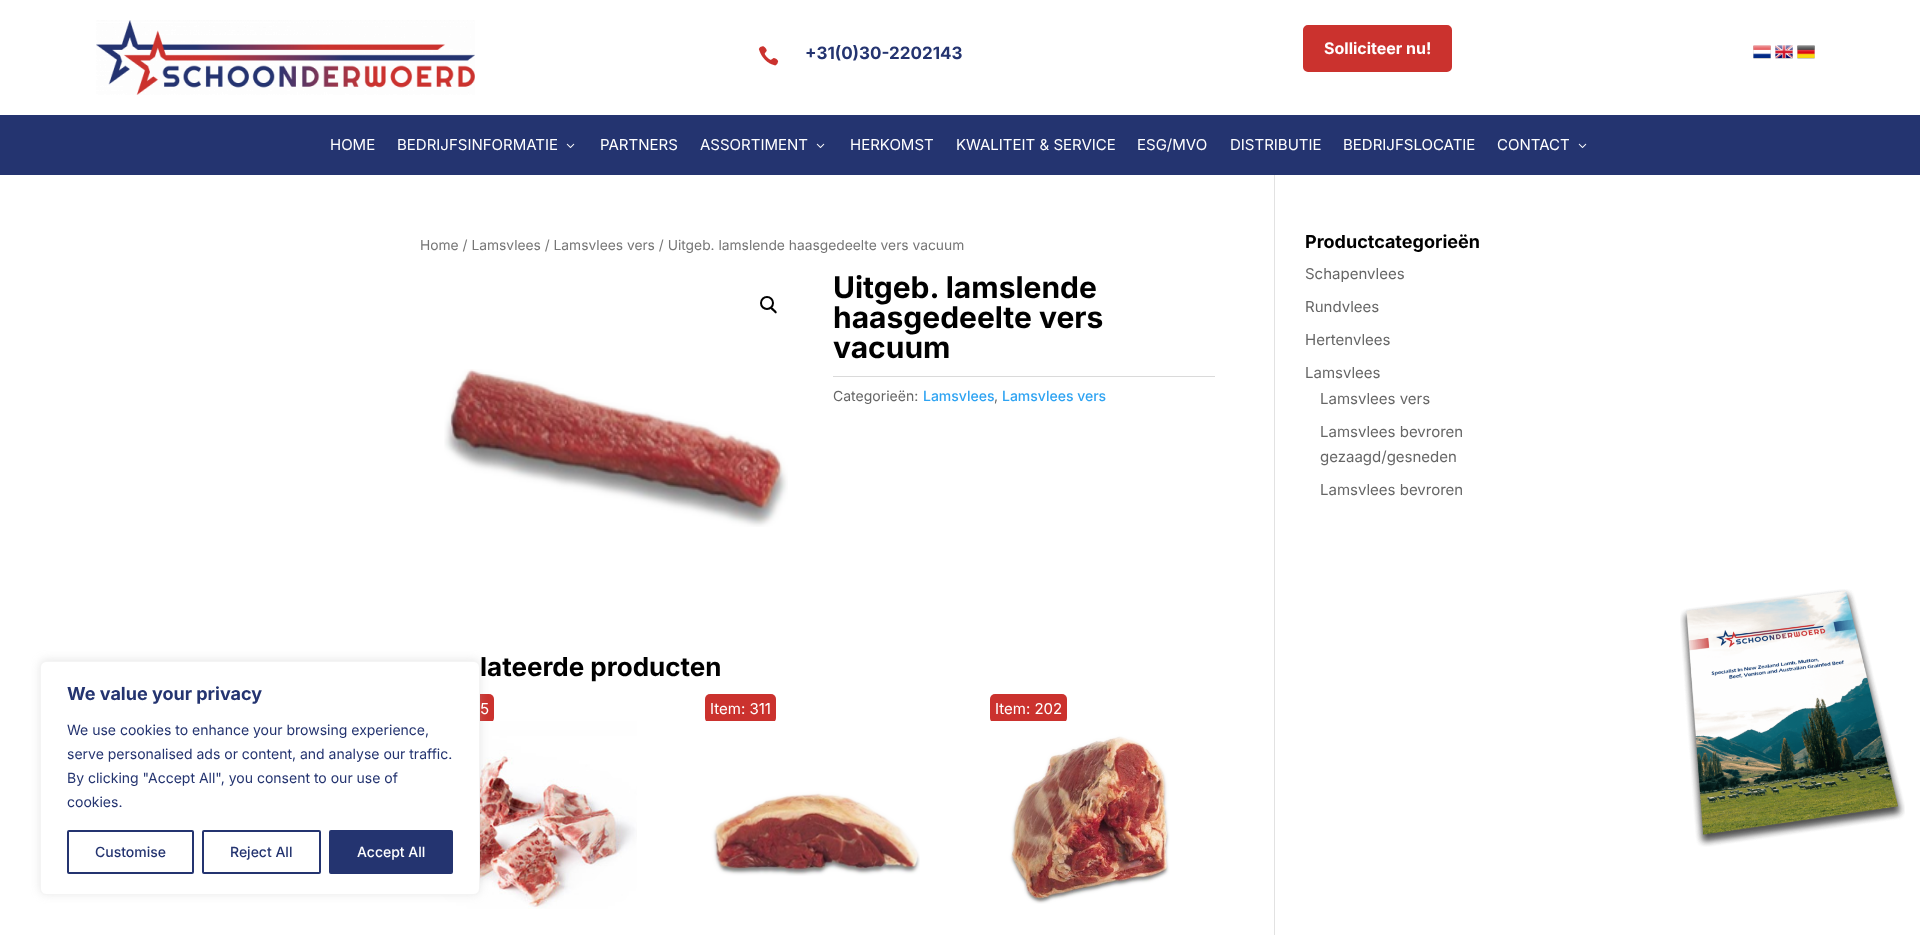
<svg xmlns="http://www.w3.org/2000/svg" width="1920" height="935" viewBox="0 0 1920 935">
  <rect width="100%" height="100%" fill="#fff"/>
  <image x="96" y="20" width="379" height="75" href="img/1.png"/>
  <image x="758" y="46" width="21" height="20" href="img/2.png"/>
  <rect x="1305.5" y="27.5" width="144" height="42" rx="2.5" fill="#cb322e" stroke="#cb322e" stroke-width="5"/>
  <image x="1753" y="45" width="18" height="14" href="img/3.png"/>
  <image x="1775" y="45" width="18" height="14" href="img/4.png"/>
  <image x="1797" y="45" width="18" height="14" href="img/5.png"/>
  <path d="M0 115h1920v60H0z" fill="#243470"/>
  <image x="566" y="143" width="9" height="5" href="img/6.png"/>
  <image x="816" y="143" width="9" height="5" href="img/6.png"/>
  <image x="1578" y="143" width="9" height="5" href="img/6.png"/>
  <path d="M1274 175h1v760H1274z" fill="#e2e2e2"/>
  <circle cx="767" cy="303" r="6" fill="none" stroke="#000" stroke-width="2"/>
  <path d="M771 307.5C772 306.5 774 309 774.5 309.5C775 310 777.5 312 776.5 313C775.5 314.5 773.5 311.5 773 311C772.5 310.5 769.5 308.5 771 307.5Z" fill="#000"/>
  <image x="444" y="369" width="344" height="158" href="img/7.png"/>
  <path d="M833 376h382v1H833z" fill="#dadada"/>
  <rect x="420" y="694" width="74" height="29" rx="5" fill="#cb322e"/>
  <image x="421" y="721" width="216" height="188" href="img/8.png"/>
  <rect x="705" y="694" width="71" height="29" rx="5" fill="#cb322e"/>
  <image x="706" y="721" width="214" height="155" href="img/9.png"/>
  <rect x="990" y="694" width="77" height="29" rx="5" fill="#cb322e"/>
  <image x="991" y="721" width="179" height="183" href="img/10.png"/>
  <image x="1680" y="589" width="225" height="258" href="img/11.png"/>
  <rect x="40" y="660" width="440" height="234" rx="6" fill="#acabab4d" filter="blur(5px)"/>
  <rect x="40.5" y="661.5" width="439" height="233" rx="5.5" fill="#fff" stroke="#f4f4f4"/>
  <rect x="68" y="831" width="125" height="42" rx="1" fill="none" stroke="#243470" stroke-width="2"/>
  <rect x="203" y="831" width="117" height="42" rx="1" fill="none" stroke="#243470" stroke-width="2"/>
  <rect x="330" y="831" width="122" height="42" rx="1" fill="#243470" stroke="#243470" stroke-width="2"/>
  <text x="805" y="59" font-family="Inter" font-size="17" font-weight="bold" fill="#243470">+31(0)30-2202143</text>
  <text x="1324" y="54" font-family="Inter" font-size="16" font-weight="bold" fill="#fff">Solliciteer nu!</text>
  <g font-family="Inter" font-size="15" fill="#fff">
    <text x="330" y="150">HOME</text>
    <text x="397" y="150">BEDRIJFSINFORMATIE</text>
    <text x="600" y="150">PARTNERS</text>
    <text x="700" y="150">ASSORTIMENT</text>
    <text x="850" y="150">HERKOMST</text>
    <text x="956" y="150">KWALITEIT &amp; SERVICE</text>
    <text x="1137" y="150">ESG/MVO</text>
    <text x="1230" y="150">DISTRIBUTIE</text>
    <text x="1343" y="150">BEDRIJFSLOCATIE</text>
    <text x="1497" y="150">CONTACT</text>
  </g>
  <text x="420" y="250" font-family="Inter" font-size="13.8" fill="#767676">Home / Lamsvlees / Lamsvlees vers / Uitgeb. lamslende haasgedeelte vers vacuum</text>
  <g font-family="Inter" font-size="30" font-weight="bold" fill="#000">
    <text x="833" y="298">Uitgeb. lamslende</text>
    <text x="833" y="328">haasgedeelte vers</text>
    <text x="833" y="358">vacuum</text>
  </g>
  <text x="833" y="401" font-family="Inter" font-size="14" fill="#666">Categorieën:</text>
  <text x="923" y="401" font-family="Inter" font-size="14" font-weight="500" fill="#2ea3f2">Lamsvlees</text>
  <text x="994" y="401" font-family="Inter" font-size="14" fill="#666">,</text>
  <text x="1002" y="401" font-family="Inter" font-size="14" font-weight="500" fill="#2ea3f2">Lamsvlees vers</text>
  <text x="480" y="676" font-family="Inter" font-size="26" font-weight="bold" fill="#000">lateerde producten</text>
  <g font-family="Inter" font-size="15" fill="#fff">
    <text x="480" y="714">5</text>
    <text x="710" y="714">Item: 311</text>
    <text x="995" y="714">Item: 202</text>
  </g>
  <text x="1305" y="248" font-family="Inter" font-size="18" font-weight="bold" fill="#000">Productcategorieën</text>
  <g font-family="Inter" font-size="15" fill="#666">
    <text x="1305" y="279">Schapenvlees</text>
    <text x="1305" y="312">Rundvlees</text>
    <text x="1305" y="345">Hertenvlees</text>
    <text x="1305" y="378">Lamsvlees</text>
    <text x="1320" y="404">Lamsvlees vers</text>
    <text x="1320" y="437">Lamsvlees bevroren</text>
    <text x="1320" y="462">gezaagd/gesneden</text>
    <text x="1320" y="495">Lamsvlees bevroren</text>
  </g>
  <text x="67" y="700" font-family="Inter" font-size="18" font-weight="bold" fill="#243470">We value your privacy</text>
  <g font-family="Inter" font-size="14" fill="#243470">
    <text x="67" y="735">We use cookies to enhance your browsing experience,</text>
    <text x="67" y="759">serve personalised ads or content, and analyse our traffic.</text>
    <text x="67" y="783">By clicking "Accept All", you consent to our use of</text>
    <text x="67" y="807">cookies.</text>
  </g>
  <g font-family="Inter" font-size="14" font-weight="500" fill="#243470">
    <text x="95" y="857">Customise</text>
    <text x="230" y="857">Reject All</text>
  </g>
  <text x="357" y="857" font-family="Inter" font-size="14" font-weight="500" fill="#fff">Accept All</text>
</svg>
